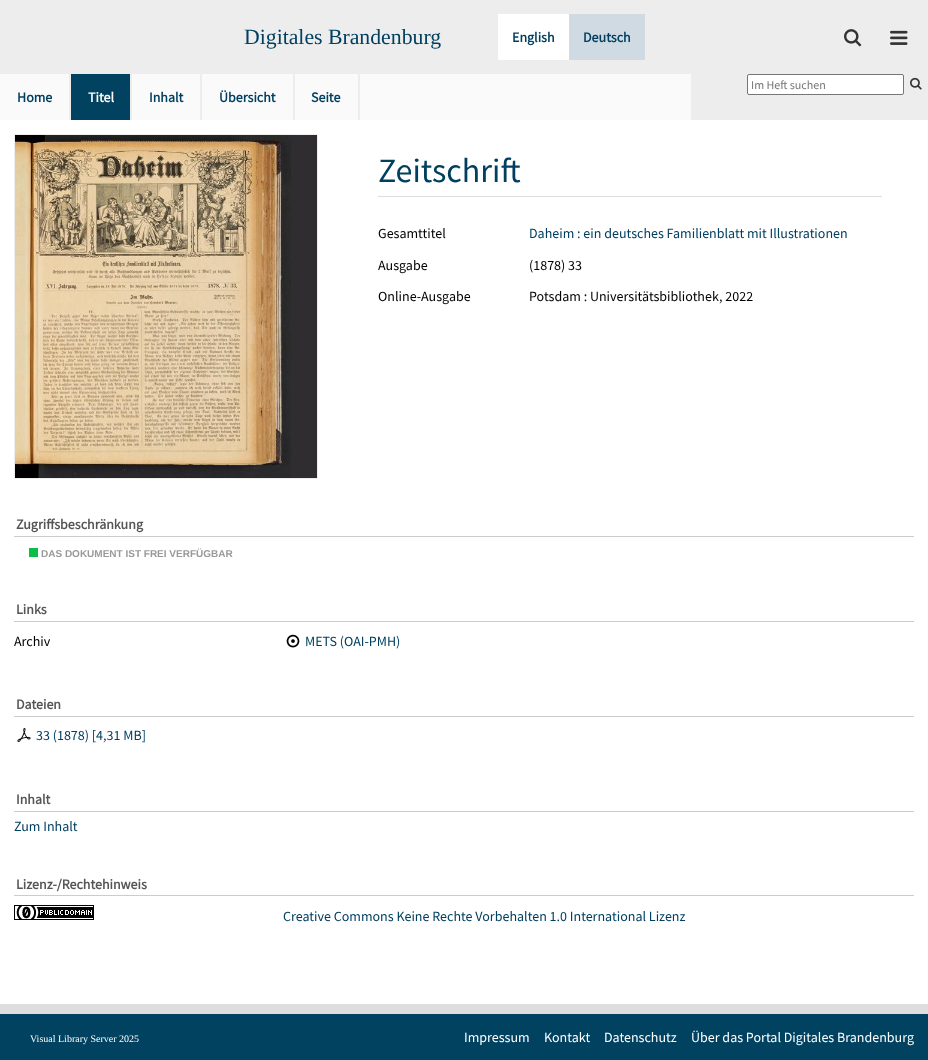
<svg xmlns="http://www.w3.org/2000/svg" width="928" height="1060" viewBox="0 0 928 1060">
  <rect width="100%" height="100%" fill="#fff"/>
  <path d="M0 0h928v120H0z" fill="#ededed"/>
  <path d="M498 14h71v46H498z" fill="#fff"/>
  <path d="M569 14h76v46H569z" fill="#cfdae3"/>
  <image x="844" y="29" width="18" height="18" href="img/1.png"/>
  <image x="890" y="30" width="18" height="15" href="img/2.png"/>
  <rect x="747.5" y="74.5" width="156" height="20" rx="1.5" fill="#fff" stroke="#767676"/>
  <image x="910" y="77" width="12" height="13" href="img/3.png"/>
  <path d="M0 74h691v46H0z" fill="#fafafa"/>
  <path d="M69 74h2v46H69z" fill="#ededed"/>
  <path d="M130 74h2v46H130z" fill="#ededed"/>
  <path d="M71 74h59v46H71z" fill="#004260"/>
  <path d="M200 74h2v46H200z" fill="#ededed"/>
  <path d="M293 74h2v46H293z" fill="#ededed"/>
  <path d="M358 74h2v46H358z" fill="#ededed"/>
  <path d="M14.5 134.5h303v344H14.5z" fill="none" stroke="#eeeeec"/>
  <image x="15" y="135" width="302" height="343" href="img/4.png"/>
  <path d="M378 196h504v1H378z" fill="#ddd"/>
  <path d="M14 536h900v1H14z" fill="#ccc"/>
  <path d="M29 548h9v9H29z" fill="#0bbe49"/>
  <path d="M14 621h900v1H14z" fill="#ccc"/>
  <image x="286" y="634" width="14" height="14" href="img/5.png"/>
  <path d="M14 716h900v1H14z" fill="#ccc"/>
  <image x="17" y="728" width="14" height="15" href="img/6.png"/>
  <path d="M14 811h900v1H14z" fill="#ccc"/>
  <path d="M14 895h900v1H14z" fill="#ccc"/>
  <image x="14" y="905" width="80" height="15" href="img/7.png"/>
  <path d="M0 1014h928v46H0z" fill="#004260"/>
  <path d="M0 1004h928v10H0z" fill="#dedede"/>
  <text x="244" y="44" font-family="Liberation Serif" font-size="21.75" fill="#003f60">Digitales Brandenburg</text>
  <g font-family="Source Sans Pro" font-size="14" font-weight="bold" fill="#003f60">
    <text x="512" y="42">English</text>
    <text x="583" y="42">Deutsch</text>
  </g>
  <text x="751" y="89" font-family="Source Sans Pro" font-size="12" fill="#757575">Im Heft suchen</text>
  <text x="17" y="102" font-family="Source Sans Pro" font-size="14" font-weight="bold" fill="#003f60">Home</text>
  <text x="88" y="102" font-family="Source Sans Pro" font-size="14" font-weight="bold" fill="#fff">Titel</text>
  <g font-family="Source Sans Pro" font-size="14" font-weight="bold" fill="#003f60">
    <text x="149" y="102">Inhalt</text>
    <text x="219" y="102">Übersicht</text>
    <text x="311" y="102">Seite</text>
  </g>
  <text x="378" y="182" font-family="Source Sans Pro" font-size="34" fill="#003f60">Zeitschrift</text>
  <text x="378" y="238" font-family="Source Sans Pro" font-size="14" fill="#000">Gesamttitel</text>
  <text x="529" y="238" font-family="Source Sans Pro" font-size="14" fill="#003f60">Daheim : ein deutsches Familienblatt mit Illustrationen</text>
  <g font-family="Source Sans Pro" font-size="14" fill="#000">
    <text x="378" y="270">Ausgabe</text>
    <text x="529" y="270">(1878) 33</text>
    <text x="378" y="301">Online-Ausgabe</text>
    <text x="529" y="301">Potsdam : Universitätsbibliothek, 2022</text>
  </g>
  <text x="16" y="529" font-family="Source Sans Pro" font-size="14" font-weight="bold" fill="#555">Zugriffsbeschränkung</text>
  <text x="41" y="557" font-family="Liberation Sans" font-size="10" font-weight="bold" fill="#999">DAS DOKUMENT IST FREI VERFÜGBAR</text>
  <text x="16" y="614" font-family="Source Sans Pro" font-size="14" font-weight="bold" fill="#555">Links</text>
  <text x="14" y="646" font-family="Source Sans Pro" font-size="14" fill="#000">Archiv</text>
  <text x="305" y="646" font-family="Source Sans Pro" font-size="14" fill="#003f60">METS (OAI-PMH)</text>
  <text x="16" y="709" font-family="Source Sans Pro" font-size="14" font-weight="bold" fill="#555">Dateien</text>
  <text x="36" y="740" font-family="Source Sans Pro" font-size="14" fill="#003f60">33 (1878) [4,31 MB]</text>
  <text x="16" y="804" font-family="Source Sans Pro" font-size="14" font-weight="bold" fill="#555">Inhalt</text>
  <text x="14" y="831" font-family="Source Sans Pro" font-size="14" fill="#003f60">Zum Inhalt</text>
  <text x="16" y="889" font-family="Source Sans Pro" font-size="14" font-weight="bold" fill="#555">Lizenz-/Rechtehinweis</text>
  <text x="283" y="921" font-family="Source Sans Pro" font-size="14" fill="#003f60">Creative Commons Keine Rechte Vorbehalten 1.0 International Lizenz</text>
  <text x="30" y="1042" font-family="Liberation Serif" font-size="10" fill="#fff">Visual Library Server 2025</text>
  <g font-family="Source Sans Pro" font-size="14" fill="#fff">
    <text x="464" y="1042">Impressum</text>
    <text x="544" y="1042">Kontakt</text>
    <text x="604" y="1042">Datenschutz</text>
    <text x="691" y="1042">Über das Portal Digitales Brandenburg</text>
  </g>
</svg>
